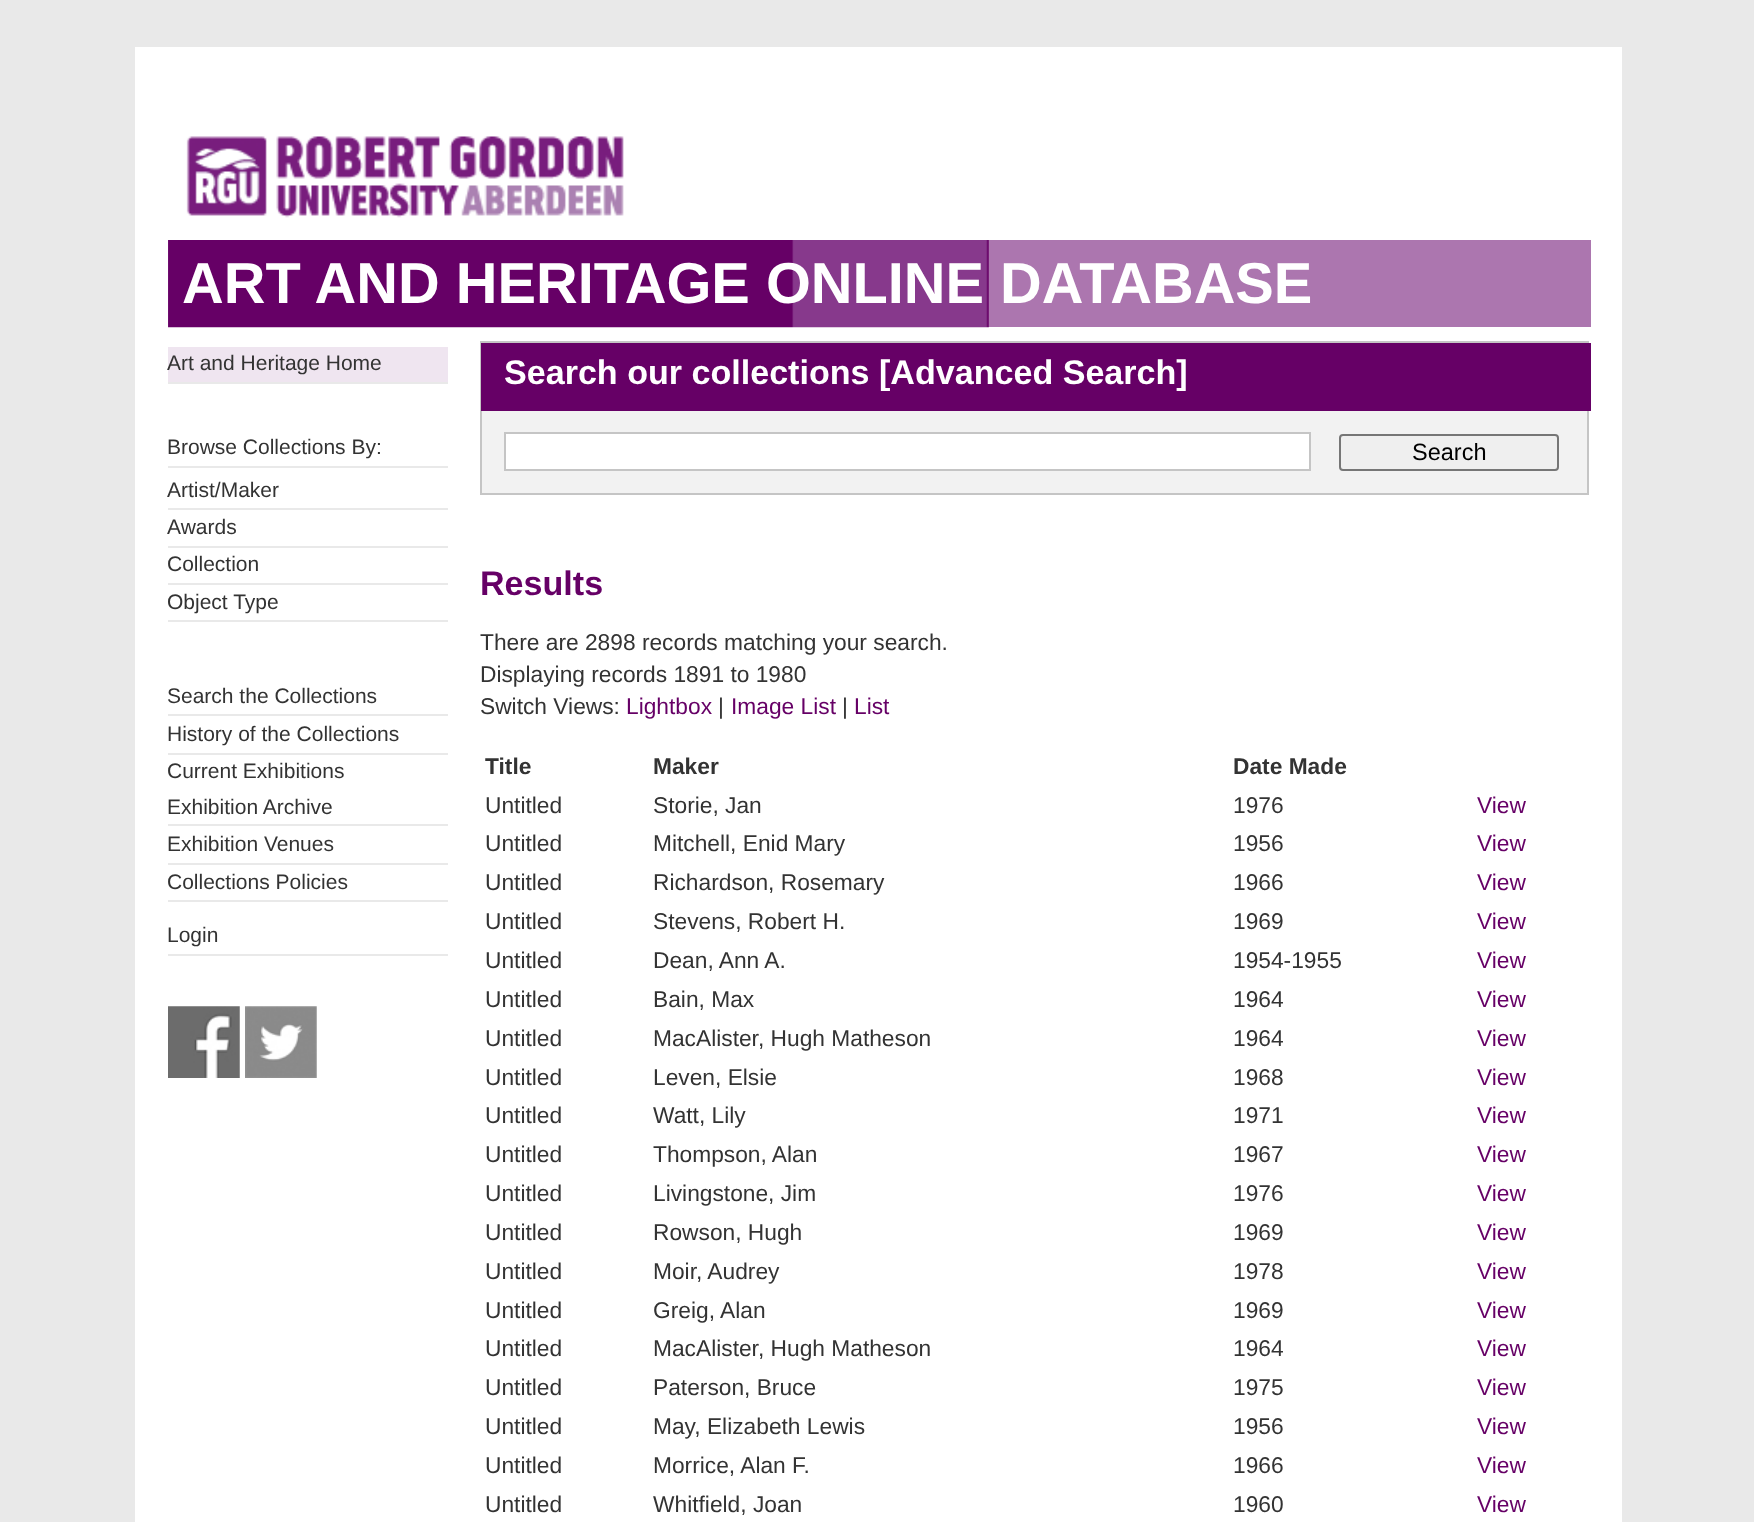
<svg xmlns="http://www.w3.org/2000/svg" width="1754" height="1522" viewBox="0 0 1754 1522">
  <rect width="100%" height="100%" fill="#e9e9e9"/>
  <path d="M135 47h1487v1475H135z" fill="#fff"/>
  <image x="186" y="136" width="438" height="82" href="img/1.png"/>
  <path d="M988 240h603v87H988z" fill="#ac76af"/>
  <image x="168" y="240" width="821" height="88" href="img/2.png"/>
  <path d="M168 382h280v2H168z" fill="#e9e9e9"/>
  <path d="M168 347h280v35H168z" fill="#efe5f0"/>
  <path d="M168 466h280v2H168z" fill="#e9e9e9"/>
  <path d="M168 508h280v2H168z" fill="#e9e9e9"/>
  <path d="M168 546h280v2H168z" fill="#e9e9e9"/>
  <path d="M168 583h280v2H168z" fill="#e9e9e9"/>
  <path d="M168 620h280v2H168z" fill="#e9e9e9"/>
  <path d="M168 714h280v2H168z" fill="#e9e9e9"/>
  <path d="M168 753h280v2H168z" fill="#e9e9e9"/>
  <path d="M168 824h280v2H168z" fill="#e9e9e9"/>
  <path d="M168 863h280v2H168z" fill="#e9e9e9"/>
  <path d="M168 900h280v2H168z" fill="#e9e9e9"/>
  <path d="M168 954h280v2H168z" fill="#e9e9e9"/>
  <image x="168" y="1006" width="72" height="72" href="img/3.png"/>
  <image x="245" y="1006" width="72" height="72" href="img/4.png"/>
  <path d="M482 411h1105v82H482z" fill="#f2f2f2"/>
  <path d="M481 342h1107v152H481z" fill="none" stroke="#c5c5c5" stroke-width="2"/>
  <path d="M481 343h1110v68H481z" fill="#606"/>
  <path d="M505 433h805v37H505z" fill="#fff" stroke="#c5c5c5" stroke-width="2"/>
  <rect x="1340" y="435" width="218" height="35" rx="3" fill="#efefef" stroke="#767676" stroke-width="2"/>
  <text x="182" y="303" font-family="Liberation Sans" font-size="57.75" font-weight="bold" fill="#fff">ART AND HERITAGE ONLINE DATABASE</text>
  <g font-family="Liberation Sans" font-size="21" fill="#333">
    <text x="167" y="370">Art and Heritage Home</text>
    <text x="167" y="454">Browse Collections By:</text>
    <text x="167" y="497">Artist/Maker</text>
    <text x="167" y="534">Awards</text>
    <text x="167" y="571">Collection</text>
    <text x="167" y="609">Object Type</text>
    <text x="167" y="703">Search the Collections</text>
    <text x="167" y="741">History of the Collections</text>
    <text x="167" y="778">Current Exhibitions</text>
    <text x="167" y="814">Exhibition Archive</text>
    <text x="167" y="851">Exhibition Venues</text>
    <text x="167" y="889">Collections Policies</text>
    <text x="167" y="942">Login</text>
  </g>
  <text x="504" y="384" font-family="Liberation Sans" font-size="34.1" font-weight="bold" fill="#fff">Search our collections [Advanced Search]</text>
  <text x="1412" y="460" font-family="Liberation Sans" font-size="23.5" fill="#000">Search</text>
  <text x="480" y="595" font-family="Liberation Sans" font-size="34.1" font-weight="bold" fill="#606">Results</text>
  <g font-family="Liberation Sans" font-size="22.75" fill="#333">
    <text x="480" y="650">There are 2898 records matching your search.</text>
    <text x="480" y="682">Displaying records 1891 to 1980</text>
    <text x="480" y="714">Switch Views:</text>
  </g>
  <text x="626" y="714" font-family="Liberation Sans" font-size="22.75" fill="#606">Lightbox</text>
  <text x="718" y="714" font-family="Liberation Sans" font-size="22.75" fill="#333">|</text>
  <text x="731" y="714" font-family="Liberation Sans" font-size="22.75" fill="#606">Image List</text>
  <text x="842" y="714" font-family="Liberation Sans" font-size="22.75" fill="#333">|</text>
  <text x="854" y="714" font-family="Liberation Sans" font-size="22.75" fill="#606">List</text>
  <g font-family="Liberation Sans" font-size="22.75" font-weight="bold" fill="#333">
    <text x="485" y="774">Title</text>
    <text x="653" y="774">Maker</text>
    <text x="1233" y="774">Date Made</text>
  </g>
  <g font-family="Liberation Sans" font-size="22.75" fill="#333">
    <text x="485" y="813">Untitled</text>
    <text x="653" y="813">Storie, Jan</text>
    <text x="1233" y="813">1976</text>
  </g>
  <text x="1477" y="813" font-family="Liberation Sans" font-size="22.75" fill="#606">View</text>
  <g font-family="Liberation Sans" font-size="22.75" fill="#333">
    <text x="485" y="851">Untitled</text>
    <text x="653" y="851">Mitchell, Enid Mary</text>
    <text x="1233" y="851">1956</text>
  </g>
  <text x="1477" y="851" font-family="Liberation Sans" font-size="22.75" fill="#606">View</text>
  <g font-family="Liberation Sans" font-size="22.75" fill="#333">
    <text x="485" y="890">Untitled</text>
    <text x="653" y="890">Richardson, Rosemary</text>
    <text x="1233" y="890">1966</text>
  </g>
  <text x="1477" y="890" font-family="Liberation Sans" font-size="22.75" fill="#606">View</text>
  <g font-family="Liberation Sans" font-size="22.75" fill="#333">
    <text x="485" y="929">Untitled</text>
    <text x="653" y="929">Stevens, Robert H.</text>
    <text x="1233" y="929">1969</text>
  </g>
  <text x="1477" y="929" font-family="Liberation Sans" font-size="22.75" fill="#606">View</text>
  <g font-family="Liberation Sans" font-size="22.75" fill="#333">
    <text x="485" y="968">Untitled</text>
    <text x="653" y="968">Dean, Ann A.</text>
    <text x="1233" y="968">1954-1955</text>
  </g>
  <text x="1477" y="968" font-family="Liberation Sans" font-size="22.75" fill="#606">View</text>
  <g font-family="Liberation Sans" font-size="22.75" fill="#333">
    <text x="485" y="1007">Untitled</text>
    <text x="653" y="1007">Bain, Max</text>
    <text x="1233" y="1007">1964</text>
  </g>
  <text x="1477" y="1007" font-family="Liberation Sans" font-size="22.75" fill="#606">View</text>
  <g font-family="Liberation Sans" font-size="22.75" fill="#333">
    <text x="485" y="1046">Untitled</text>
    <text x="653" y="1046">MacAlister, Hugh Matheson</text>
    <text x="1233" y="1046">1964</text>
  </g>
  <text x="1477" y="1046" font-family="Liberation Sans" font-size="22.75" fill="#606">View</text>
  <g font-family="Liberation Sans" font-size="22.75" fill="#333">
    <text x="485" y="1085">Untitled</text>
    <text x="653" y="1085">Leven, Elsie</text>
    <text x="1233" y="1085">1968</text>
  </g>
  <text x="1477" y="1085" font-family="Liberation Sans" font-size="22.75" fill="#606">View</text>
  <g font-family="Liberation Sans" font-size="22.75" fill="#333">
    <text x="485" y="1123">Untitled</text>
    <text x="653" y="1123">Watt, Lily</text>
    <text x="1233" y="1123">1971</text>
  </g>
  <text x="1477" y="1123" font-family="Liberation Sans" font-size="22.75" fill="#606">View</text>
  <g font-family="Liberation Sans" font-size="22.75" fill="#333">
    <text x="485" y="1162">Untitled</text>
    <text x="653" y="1162">Thompson, Alan</text>
    <text x="1233" y="1162">1967</text>
  </g>
  <text x="1477" y="1162" font-family="Liberation Sans" font-size="22.75" fill="#606">View</text>
  <g font-family="Liberation Sans" font-size="22.75" fill="#333">
    <text x="485" y="1201">Untitled</text>
    <text x="653" y="1201">Livingstone, Jim</text>
    <text x="1233" y="1201">1976</text>
  </g>
  <text x="1477" y="1201" font-family="Liberation Sans" font-size="22.75" fill="#606">View</text>
  <g font-family="Liberation Sans" font-size="22.75" fill="#333">
    <text x="485" y="1240">Untitled</text>
    <text x="653" y="1240">Rowson, Hugh</text>
    <text x="1233" y="1240">1969</text>
  </g>
  <text x="1477" y="1240" font-family="Liberation Sans" font-size="22.75" fill="#606">View</text>
  <g font-family="Liberation Sans" font-size="22.75" fill="#333">
    <text x="485" y="1279">Untitled</text>
    <text x="653" y="1279">Moir, Audrey</text>
    <text x="1233" y="1279">1978</text>
  </g>
  <text x="1477" y="1279" font-family="Liberation Sans" font-size="22.75" fill="#606">View</text>
  <g font-family="Liberation Sans" font-size="22.75" fill="#333">
    <text x="485" y="1318">Untitled</text>
    <text x="653" y="1318">Greig, Alan</text>
    <text x="1233" y="1318">1969</text>
  </g>
  <text x="1477" y="1318" font-family="Liberation Sans" font-size="22.75" fill="#606">View</text>
  <g font-family="Liberation Sans" font-size="22.75" fill="#333">
    <text x="485" y="1356">Untitled</text>
    <text x="653" y="1356">MacAlister, Hugh Matheson</text>
    <text x="1233" y="1356">1964</text>
  </g>
  <text x="1477" y="1356" font-family="Liberation Sans" font-size="22.75" fill="#606">View</text>
  <g font-family="Liberation Sans" font-size="22.75" fill="#333">
    <text x="485" y="1395">Untitled</text>
    <text x="653" y="1395">Paterson, Bruce</text>
    <text x="1233" y="1395">1975</text>
  </g>
  <text x="1477" y="1395" font-family="Liberation Sans" font-size="22.75" fill="#606">View</text>
  <g font-family="Liberation Sans" font-size="22.75" fill="#333">
    <text x="485" y="1434">Untitled</text>
    <text x="653" y="1434">May, Elizabeth Lewis</text>
    <text x="1233" y="1434">1956</text>
  </g>
  <text x="1477" y="1434" font-family="Liberation Sans" font-size="22.75" fill="#606">View</text>
  <g font-family="Liberation Sans" font-size="22.75" fill="#333">
    <text x="485" y="1473">Untitled</text>
    <text x="653" y="1473">Morrice, Alan F.</text>
    <text x="1233" y="1473">1966</text>
  </g>
  <text x="1477" y="1473" font-family="Liberation Sans" font-size="22.75" fill="#606">View</text>
  <g font-family="Liberation Sans" font-size="22.75" fill="#333">
    <text x="485" y="1512">Untitled</text>
    <text x="653" y="1512">Whitfield, Joan</text>
    <text x="1233" y="1512">1960</text>
  </g>
  <text x="1477" y="1512" font-family="Liberation Sans" font-size="22.75" fill="#606">View</text>
</svg>
